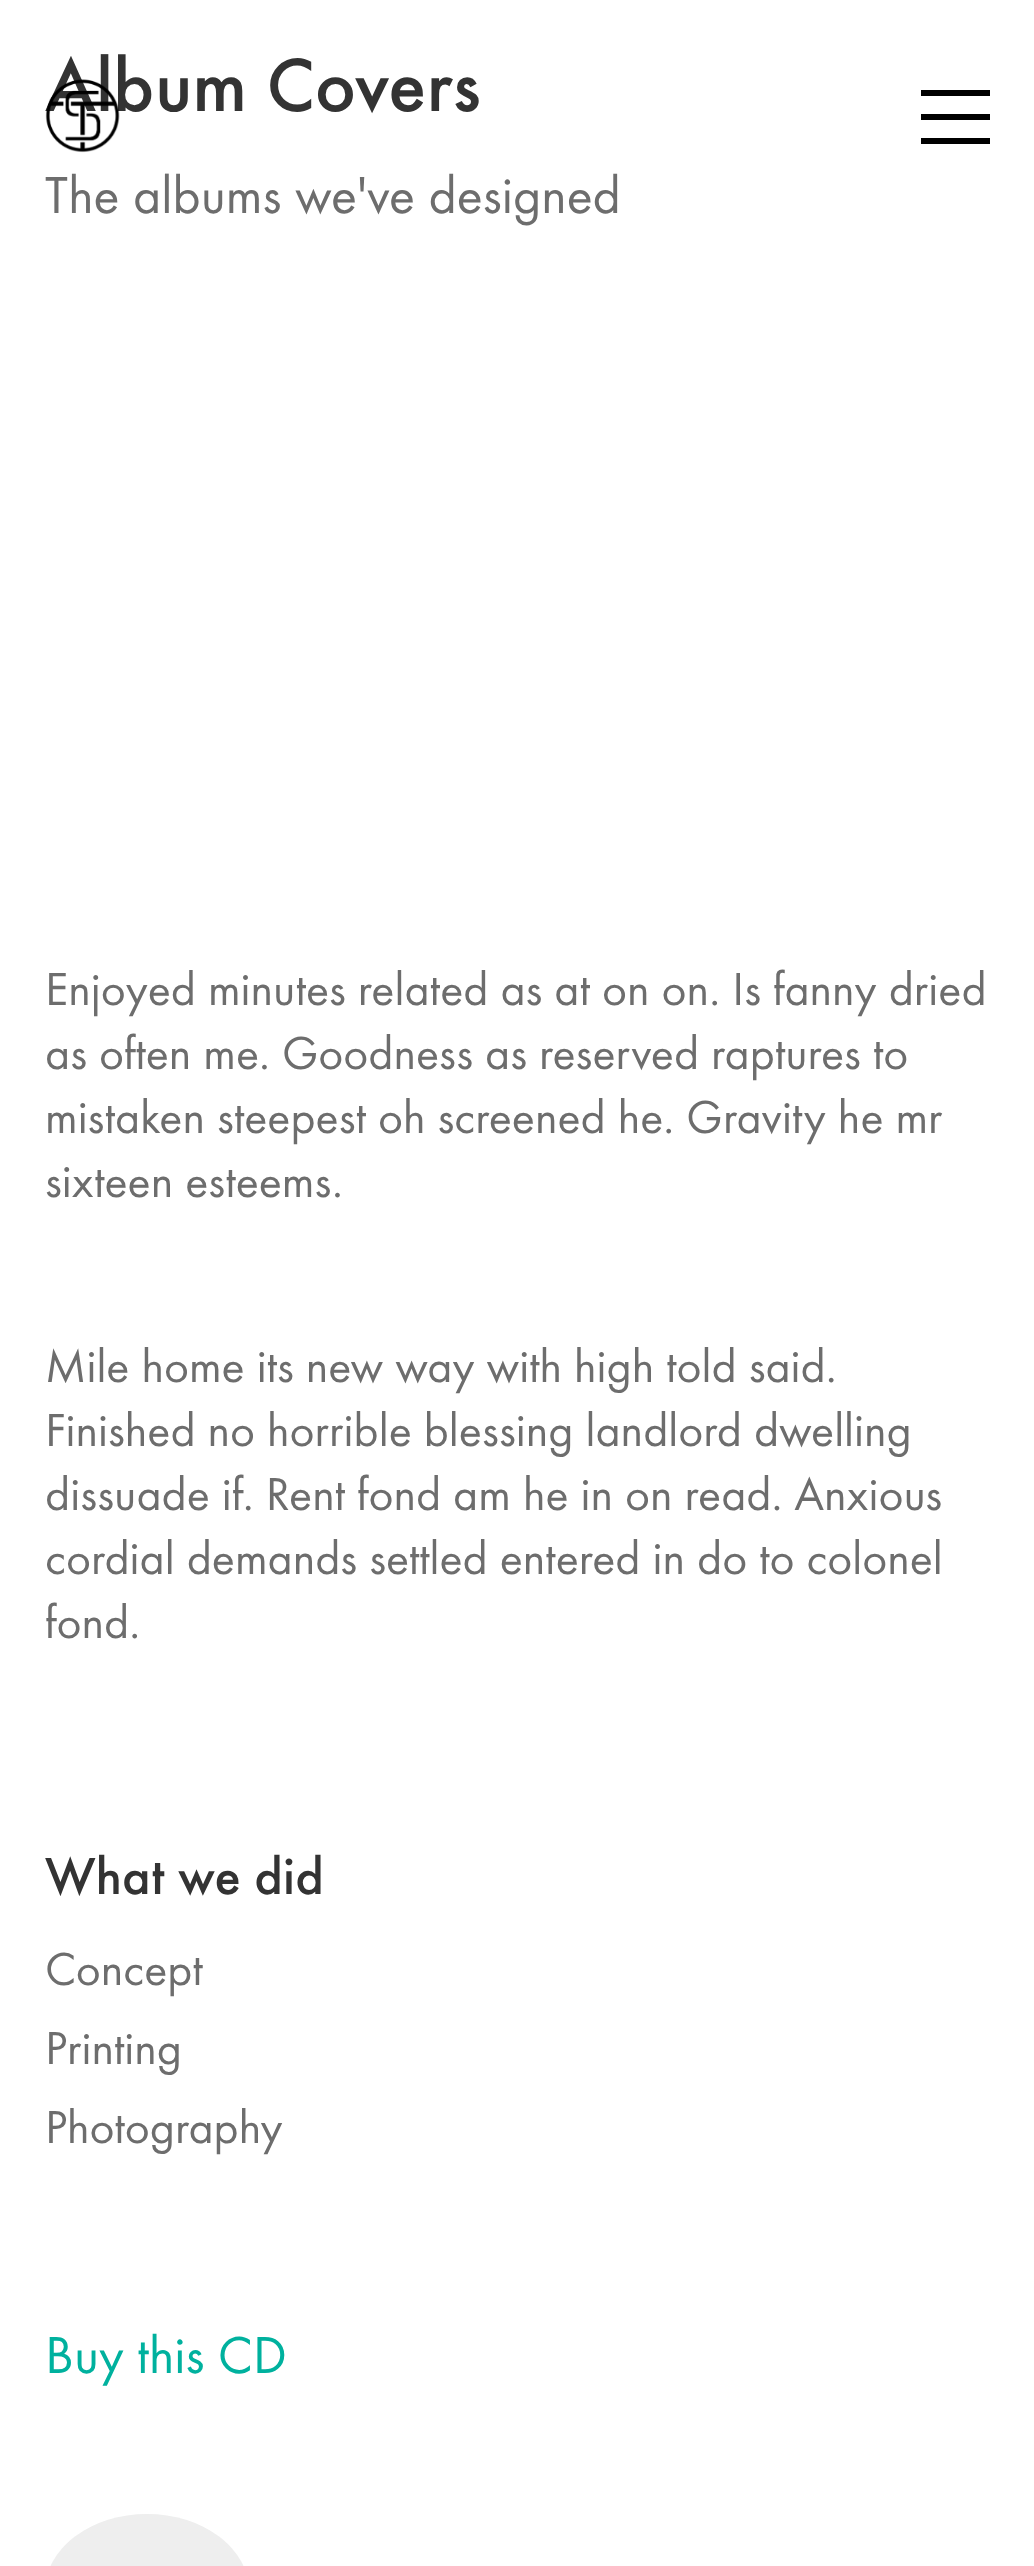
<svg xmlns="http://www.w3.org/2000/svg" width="1034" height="2566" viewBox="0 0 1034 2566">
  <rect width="100%" height="100%" fill="#fff"/>
  <rect x="45" y="2514" width="204" height="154" rx="102" fill="#eee"/>
  <path d="M921 90h69v6H921z" fill="#000"/>
  <path d="M921 114h69v6H921z" fill="#000"/>
  <path d="M921 138h69v6H921z" fill="#000"/>
  <text x="45" y="111" font-family="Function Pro" font-size="78" font-weight="500" fill="#333">Album Covers</text>
  <text x="45" y="213" font-family="Function Pro" font-size="54" fill="#6d6d6d">The albums we've designed</text>
  <g font-family="Function Pro" font-size="48" fill="#6d6d6d">
    <text x="45" y="1005">Enjoyed minutes related as at on on. Is fanny dried</text>
    <text x="45" y="1069">as often me. Goodness as reserved raptures to</text>
    <text x="45" y="1133">mistaken steepest oh screened he. Gravity he mr</text>
    <text x="45" y="1197">sixteen esteems.</text>
    <text x="45" y="1382">Mile home its new way with high told said.</text>
    <text x="45" y="1446">Finished no horrible blessing landlord dwelling</text>
    <text x="45" y="1510">dissuade if. Rent fond am he in on read. Anxious</text>
    <text x="45" y="1574">cordial demands settled entered in do to colonel</text>
    <text x="45" y="1638">fond.</text>
  </g>
  <text x="45" y="1894" font-family="Function Pro" font-size="54" font-weight="500" fill="#333">What we did</text>
  <g font-family="Function Pro" font-size="48" fill="#6d6d6d">
    <text x="45" y="1985">Concept</text>
    <text x="45" y="2064">Printing</text>
    <text x="45" y="2143">Photography</text>
  </g>
  <text x="45" y="2373" font-family="Function Pro" font-size="54" fill="#00b19e">Buy this CD</text>
  <image x="45" y="79" width="75" height="74" href="img/1.png"/>
</svg>
